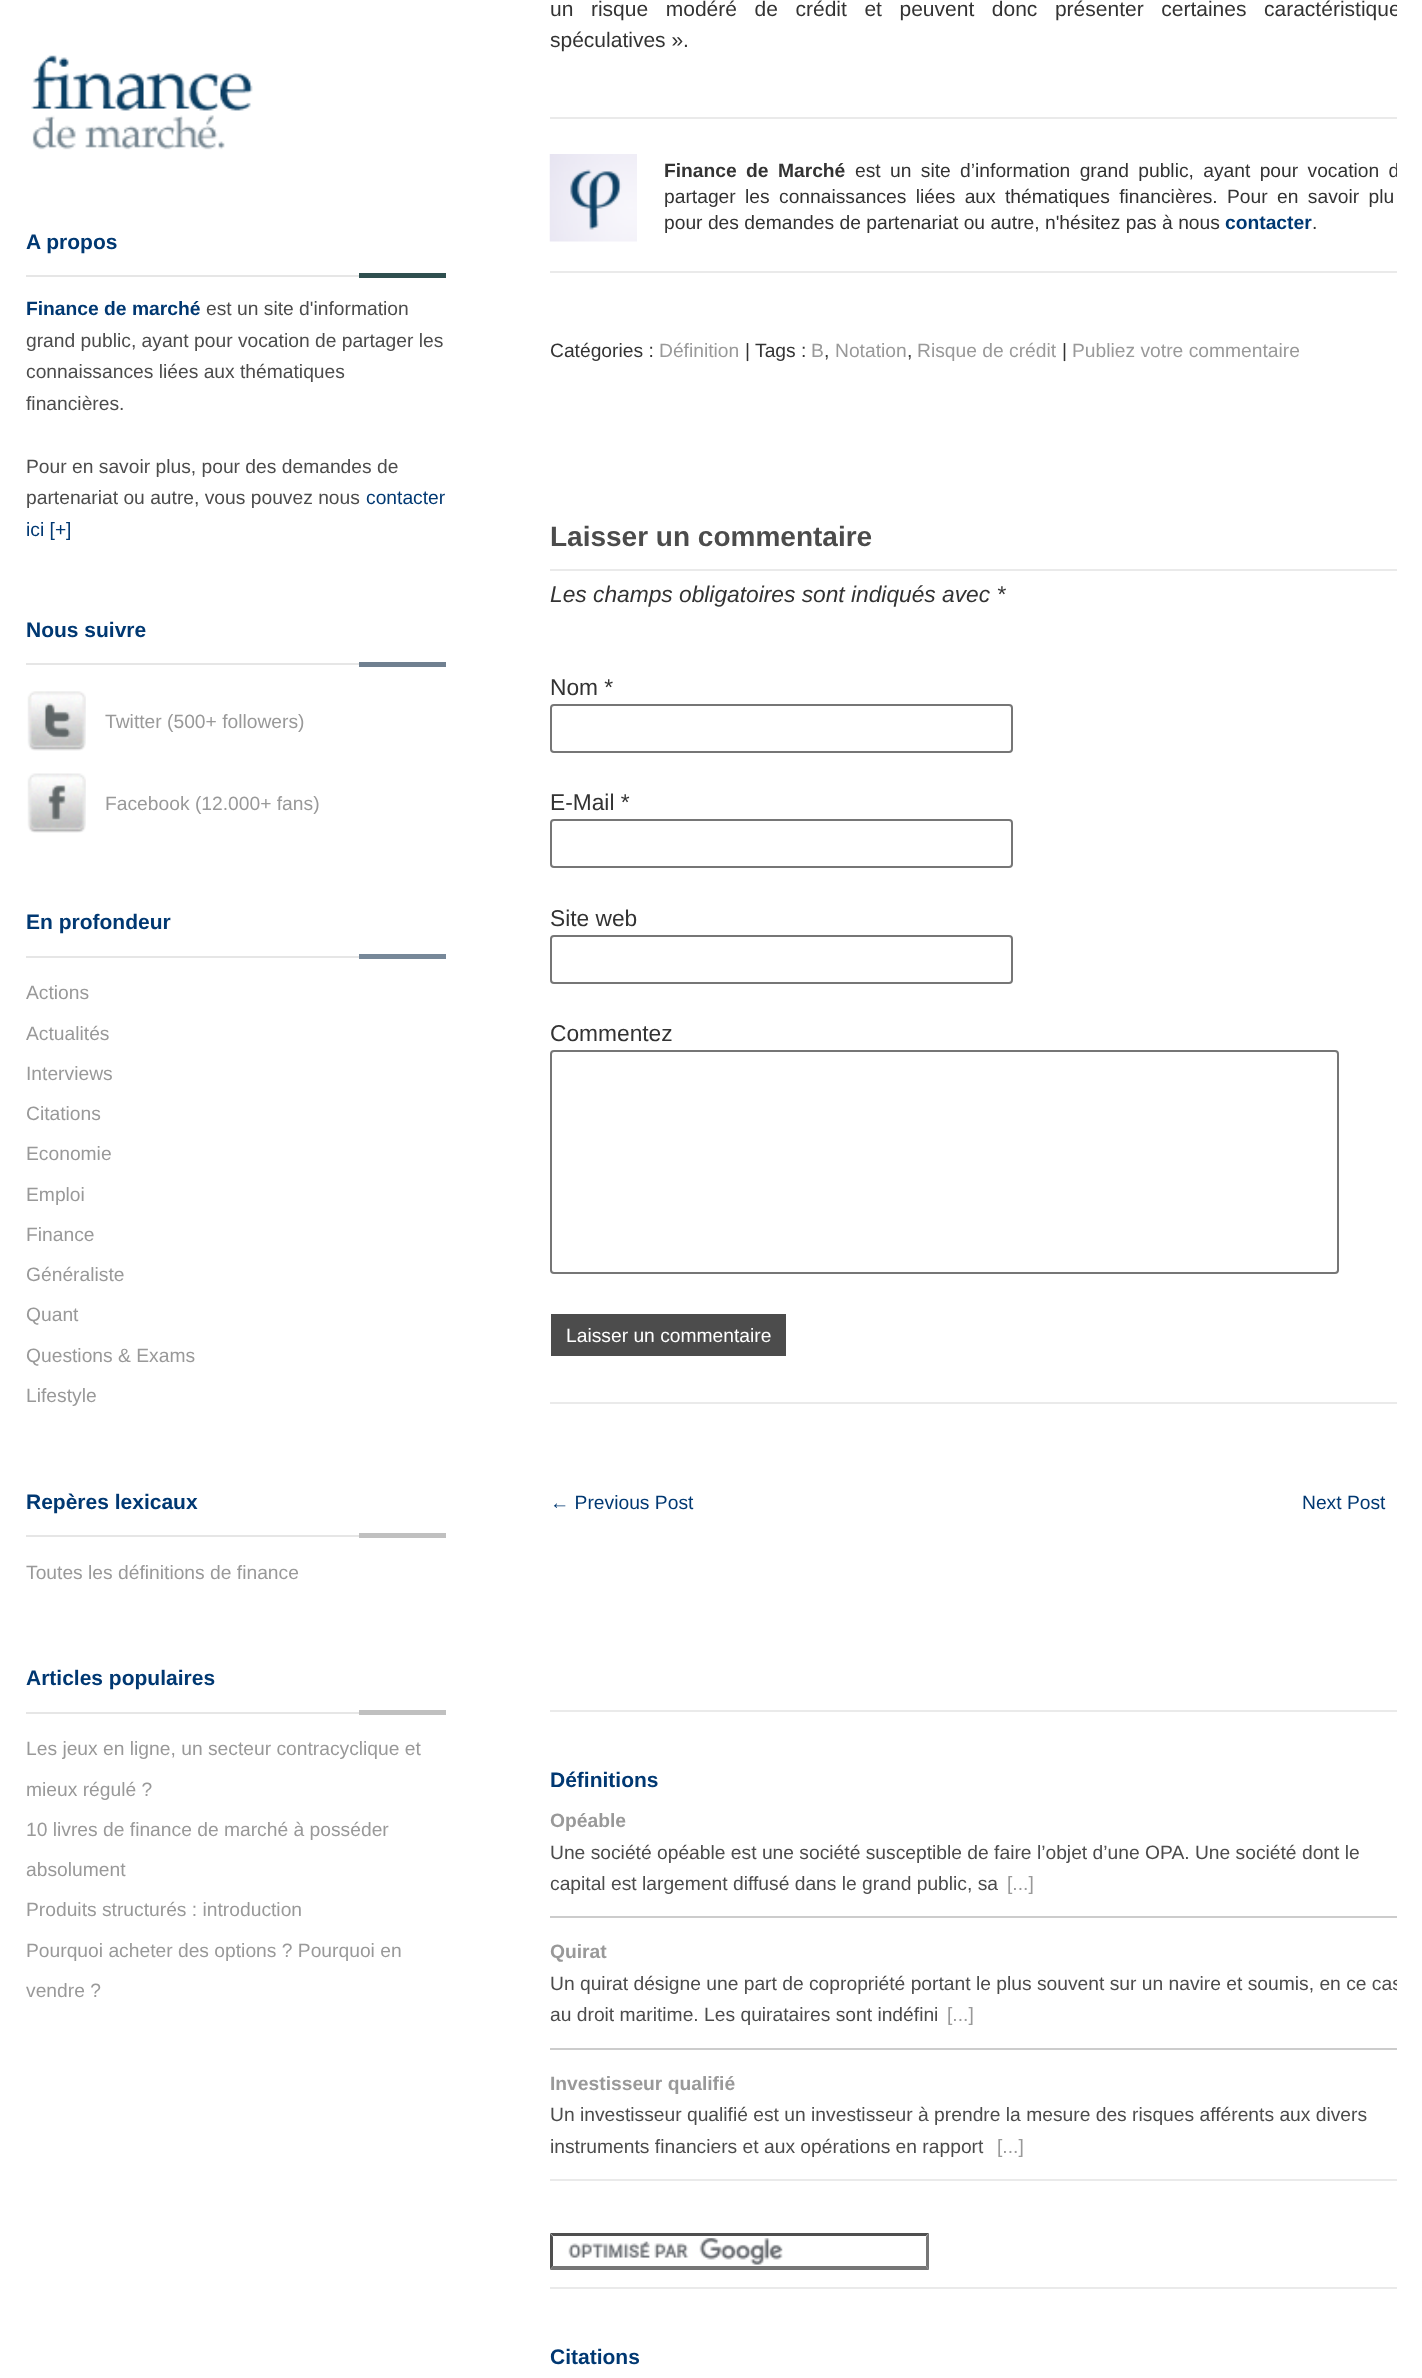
<svg xmlns="http://www.w3.org/2000/svg" width="1422" height="2378" viewBox="0 0 1422 2378">
  <defs>
    <clipPath id="clip1"><path d="M550 2233h847v54H550z"/></clipPath>
    <clipPath id="clip2"><path d="M410 0h987v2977H410z"/></clipPath>
    <clipPath id="clip3"><path d="M663 145h734v126H663z"/></clipPath>
    <clipPath id="clip4"><path d="M550 1764h847v415H550z"/></clipPath>
  </defs>
  <rect width="100%" height="100%" fill="#fff"/>
  <image x="31" y="55" width="222" height="95" href="img/1.png"/>
  <path d="M26 275h333v2H26z" fill="#e6e6e6"/>
  <path d="M359 273h87v5H359z" fill="#2f4f4f"/>
  <path d="M26 663h333v2H26z" fill="#e6e6e6"/>
  <path d="M359 662h87v5H359z" fill="#708090"/>
  <image x="27" y="691" width="59" height="60" href="img/2.png"/>
  <image x="27" y="773" width="59" height="60" href="img/3.png"/>
  <path d="M26 956h333v2H26z" fill="#e6e6e6"/>
  <path d="M359 954h87v5H359z" fill="#789"/>
  <path d="M26 1535h333v2H26z" fill="#e6e6e6"/>
  <path d="M359 1533h87v5H359z" fill="#c0c0c0"/>
  <path d="M26 1712h333v2H26z" fill="#e6e6e6"/>
  <path d="M359 1710h87v5H359z" fill="#c0c0c0"/>
  <path d="M550 1402h847v2H550z" fill="#eaeaea"/>
  <path d="M550 117h847v2H550z" fill="#eaeaea"/>
  <path d="M550 271h847v2H550z" fill="#eaeaea"/>
  <image x="549" y="154" width="88" height="88" href="img/4.png"/>
  <path d="M550 569h847v2H550z" fill="#eaeaea"/>
  <rect x="551" y="705" width="461" height="47" rx="3" fill="none" stroke="#767676" stroke-width="2"/>
  <rect x="551" y="820" width="461" height="47" rx="3" fill="none" stroke="#767676" stroke-width="2"/>
  <rect x="551" y="936" width="461" height="47" rx="3" fill="none" stroke="#767676" stroke-width="2"/>
  <rect x="551" y="1051" width="787" height="222" rx="3" fill="none" stroke="#767676" stroke-width="2"/>
  <path d="M551 1314h235v42H551z" fill="#4c4c4c"/>
  <path d="M550 1710h847v2H550z" fill="#eaeaea"/>
  <path d="M550 2179h847v2H550z" fill="#eaeaea"/>
  <path d="M550 1916h847v2H550z" fill="#ccc"/>
  <path d="M550 2048h847v2H550z" fill="#ccc"/>
  <path d="M550 2287h847v2H550z" fill="#eaeaea"/>
  <image x="568" y="2238" width="215" height="27" href="img/5.png"/>
  <path d="M550 2233H929L926 2236H553Z" fill="#4f4f4f"/>
  <path d="M929 2233V2270L926 2266V2236.5Z" fill="#767676"/>
  <path d="M929 2270H550L553 2266H926Z" fill="#767676"/>
  <g clip-path="url(#clip1)">
    <path d="M549.5 2270V2233L553 2236.5V2266Z" fill="#4f4f4f"/>
  </g>
  <text x="26" y="249" font-family="Liberation Sans" font-size="21" font-weight="bold" fill="#003872">A propos</text>
  <text x="26" y="315" font-family="Liberation Sans" font-size="19.25" font-weight="bold" fill="#003872">Finance de marché</text>
  <g font-family="Liberation Sans" font-size="19.25" fill="#4c4c4c">
    <text x="206" y="315">est un site d'information</text>
    <text x="26" y="347">grand public, ayant pour vocation de partager les</text>
    <text x="26" y="378">connaissances liées aux thématiques</text>
    <text x="26" y="410">financières.</text>
    <text x="26" y="473">Pour en savoir plus, pour des demandes de</text>
    <text x="26" y="504">partenariat ou autre, vous pouvez nous</text>
  </g>
  <g font-family="Liberation Sans" font-size="19.25" fill="#003872">
    <text x="366" y="504">contacter</text>
    <text x="26" y="536">ici [+]</text>
  </g>
  <text x="26" y="637" font-family="Liberation Sans" font-size="21" font-weight="bold" fill="#003872">Nous suivre</text>
  <g font-family="Liberation Sans" font-size="19.25" fill="#999">
    <text x="105" y="728">Twitter (500+ followers)</text>
    <text x="105" y="810">Facebook (12.000+ fans)</text>
  </g>
  <text x="26" y="929" font-family="Liberation Sans" font-size="21" font-weight="bold" fill="#003872">En profondeur</text>
  <g font-family="Liberation Sans" font-size="19.25" fill="#999">
    <text x="26" y="999">Actions</text>
    <text x="26" y="1040">Actualités</text>
    <text x="26" y="1080">Interviews</text>
    <text x="26" y="1120">Citations</text>
    <text x="26" y="1160">Economie</text>
    <text x="26" y="1201">Emploi</text>
    <text x="26" y="1241">Finance</text>
    <text x="26" y="1281">Généraliste</text>
    <text x="26" y="1321">Quant</text>
    <text x="26" y="1362">Questions &amp; Exams</text>
    <text x="26" y="1402">Lifestyle</text>
  </g>
  <text x="26" y="1509" font-family="Liberation Sans" font-size="21" font-weight="bold" fill="#003872">Repères lexicaux</text>
  <text x="26" y="1579" font-family="Liberation Sans" font-size="19.25" fill="#999">Toutes les définitions de finance</text>
  <text x="26" y="1685" font-family="Liberation Sans" font-size="21" font-weight="bold" fill="#003872">Articles populaires</text>
  <g font-family="Liberation Sans" font-size="19.25" fill="#999">
    <text x="26" y="1755">Les jeux en ligne, un secteur contracyclique et</text>
    <text x="26" y="1796">mieux régulé ?</text>
    <text x="26" y="1836">10 livres de finance de marché à posséder</text>
    <text x="26" y="1876">absolument</text>
    <text x="26" y="1916">Produits structurés : introduction</text>
    <text x="26" y="1957">Pourquoi acheter des options ? Pourquoi en</text>
    <text x="26" y="1997">vendre ?</text>
  </g>
  <g clip-path="url(#clip2)">
    <text x="550" y="16" word-spacing="11.75" font-family="Liberation Sans" font-size="21" fill="#333">un risque modéré de crédit et peuvent donc présenter certaines caractéristique</text>
  </g>
  <text x="550" y="47" font-family="Liberation Sans" font-size="21" fill="#333">spéculatives ».</text>
  <text x="664" y="177" word-spacing="4" font-family="Liberation Sans" font-size="19.25" font-weight="bold" fill="#333">Finance de Marché</text>
  <g clip-path="url(#clip3)">
    <text x="855" y="177" word-spacing="4" font-family="Liberation Sans" font-size="19.25" fill="#333">est un site d’information grand public, ayant pour vocation d</text>
  </g>
  <g font-family="Liberation Sans" font-size="19.25" fill="#333">
    <text x="664" y="203" word-spacing="4">partager les connaissances liées aux thématiques financières. Pour en savoir plu</text>
    <text x="664" y="229">pour des demandes de partenariat ou autre, n'hésitez pas à nous</text>
  </g>
  <text x="1225" y="229" font-family="Liberation Sans" font-size="19.25" font-weight="bold" fill="#003872">contacter</text>
  <g font-family="Liberation Sans" font-size="19.25" fill="#333">
    <text x="1312" y="229">.</text>
    <text x="550" y="357">Catégories :</text>
  </g>
  <text x="659" y="357" font-family="Liberation Sans" font-size="19.25" fill="#999">Définition</text>
  <g font-family="Liberation Sans" font-size="19.25" fill="#333">
    <text x="745" y="357">|</text>
    <text x="755" y="357">Tags :</text>
  </g>
  <text x="811" y="357" font-family="Liberation Sans" font-size="19.25" fill="#999">B</text>
  <text x="824" y="357" font-family="Liberation Sans" font-size="19.25" fill="#333">,</text>
  <text x="835" y="357" font-family="Liberation Sans" font-size="19.25" fill="#999">Notation</text>
  <text x="907" y="357" font-family="Liberation Sans" font-size="19.25" fill="#333">,</text>
  <text x="917" y="357" font-family="Liberation Sans" font-size="19.25" fill="#999">Risque de crédit</text>
  <text x="1062" y="357" font-family="Liberation Sans" font-size="19.25" fill="#333">|</text>
  <text x="1072" y="357" font-family="Liberation Sans" font-size="19.25" fill="#999">Publiez votre commentaire</text>
  <text x="550" y="546" font-family="Liberation Sans" font-size="28" font-weight="bold" fill="#4c4c4c">Laisser un commentaire</text>
  <text x="550" y="602" font-family="Liberation Sans" font-size="22.75" font-style="italic" fill="#333">Les champs obligatoires sont indiqués avec *</text>
  <g font-family="Liberation Sans" font-size="22.75" fill="#333">
    <text x="550" y="695">Nom *</text>
    <text x="550" y="810">E-Mail *</text>
    <text x="550" y="926">Site web</text>
    <text x="550" y="1041">Commentez</text>
  </g>
  <text x="566" y="1342" font-family="Liberation Sans" font-size="19.25" fill="#fff">Laisser un commentaire</text>
  <g font-family="Liberation Sans" font-size="19.25" fill="#003872">
    <text x="550" y="1509">← Previous Post</text>
    <text x="1302" y="1509">Next Post</text>
  </g>
  <text x="550" y="1787" font-family="Liberation Sans" font-size="21" font-weight="bold" fill="#003872">Définitions</text>
  <text x="550" y="1827" font-family="Liberation Sans" font-size="19.25" font-weight="bold" fill="#999">Opéable</text>
  <g font-family="Liberation Sans" font-size="19.25" fill="#4c4c4c">
    <text x="550" y="1859">Une société opéable est une société susceptible de faire l’objet d’une OPA. Une société dont le</text>
    <text x="550" y="1890">capital est largement diffusé dans le grand public, sa</text>
  </g>
  <text x="1007" y="1890" font-family="Liberation Sans" font-size="19.25" fill="#999">[...]</text>
  <text x="550" y="1958" font-family="Liberation Sans" font-size="19.25" font-weight="bold" fill="#999">Quirat</text>
  <g clip-path="url(#clip4)">
    <text x="550" y="1990" font-family="Liberation Sans" font-size="19.25" fill="#4c4c4c">Un quirat désigne une part de copropriété portant le plus souvent sur un navire et soumis, en ce cas</text>
  </g>
  <text x="550" y="2021" font-family="Liberation Sans" font-size="19.25" fill="#4c4c4c">au droit maritime. Les quirataires sont indéfini</text>
  <text x="947" y="2021" font-family="Liberation Sans" font-size="19.25" fill="#999">[...]</text>
  <text x="550" y="2090" font-family="Liberation Sans" font-size="19.25" font-weight="bold" fill="#999">Investisseur qualifié</text>
  <g font-family="Liberation Sans" font-size="19.25" fill="#4c4c4c">
    <text x="550" y="2121">Un investisseur qualifié est un investisseur à prendre la mesure des risques afférents aux divers</text>
    <text x="550" y="2153">instruments financiers et aux opérations en rapport</text>
  </g>
  <text x="997" y="2153" font-family="Liberation Sans" font-size="19.25" fill="#999">[...]</text>
  <text x="550" y="2364" font-family="Liberation Sans" font-size="21" font-weight="bold" fill="#003872">Citations</text>
</svg>
